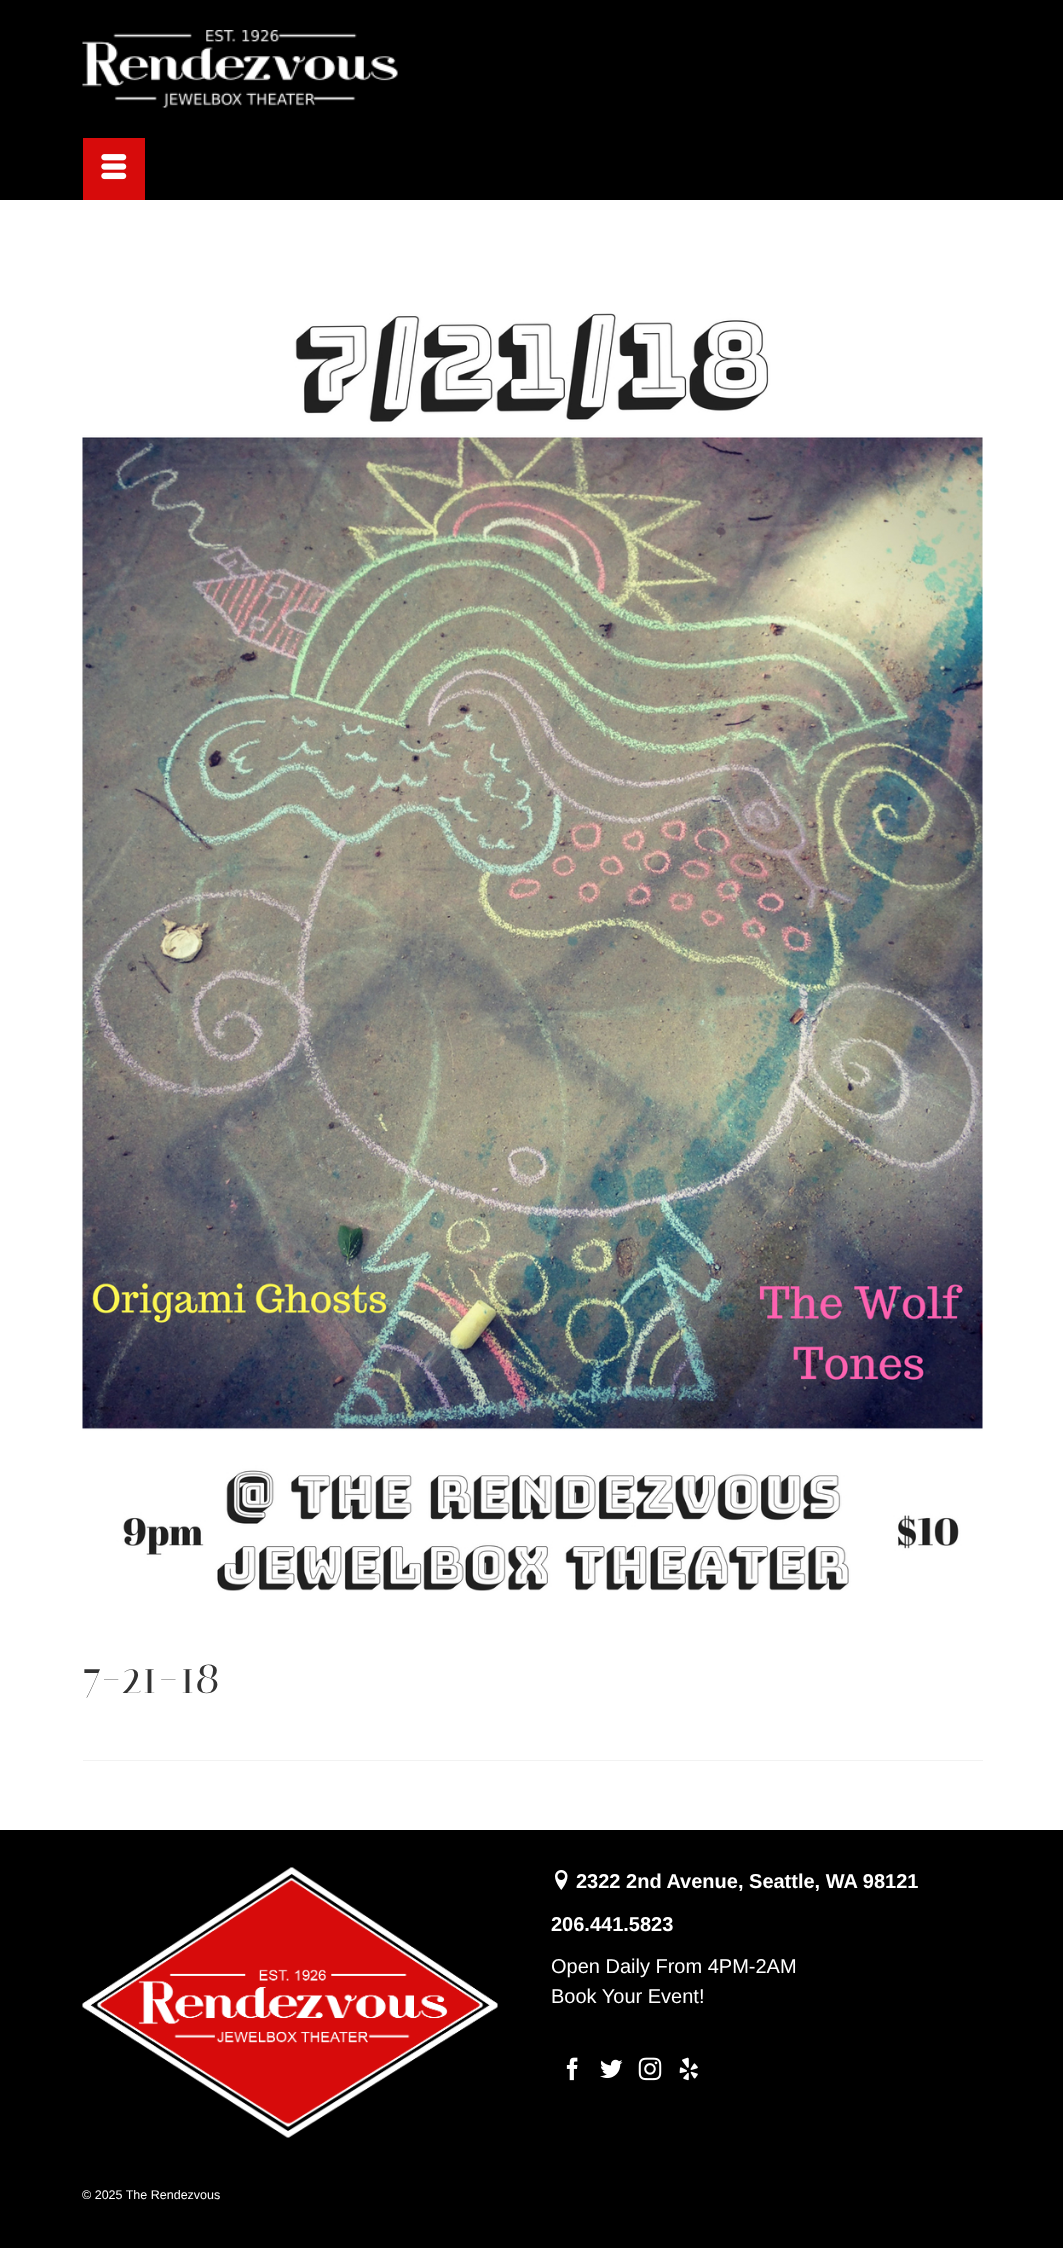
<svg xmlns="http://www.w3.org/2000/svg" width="1063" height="2248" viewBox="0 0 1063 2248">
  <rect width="100%" height="100%" fill="#000"/>
  <image x="82" y="30" width="316" height="78" href="img/1.png"/>
  <path d="M83 138h62v62H83z" fill="#d70b0b"/>
  <image x="101" y="154" width="26" height="26" href="img/2.png"/>
  <path d="M0 200h1063v1630H0z" fill="#fff"/>
  <image x="82" y="313" width="901" height="1278" href="img/3.png"/>
  <path d="M83 1760h900v1H83z" fill="#f2f2f2"/>
  <image x="82" y="1867" width="416" height="271" href="img/4.png"/>
  <image x="555" y="1870" width="13" height="20" href="img/5.png"/>
  <image x="566" y="2057" width="12" height="24" href="img/6.png"/>
  <image x="600" y="2059" width="23" height="20" href="img/7.png"/>
  <image x="638" y="2057" width="24" height="24" href="img/8.png"/>
  <image x="679" y="2057" width="19" height="24" href="img/9.png"/>
  <text x="82" y="1693" font-family="Italiana" font-size="47.5" fill="#333">7-21-18</text>
  <g font-family="Liberation Sans" font-size="20" font-weight="bold" fill="#fff">
    <text x="576" y="1888">2322 2nd Avenue, Seattle, WA 98121</text>
    <text x="551" y="1931">206.441.5823</text>
  </g>
  <g font-family="Liberation Sans" font-size="20" fill="#fff">
    <text x="551" y="1973">Open Daily From 4PM-2AM</text>
    <text x="551" y="2003">Book Your Event!</text>
  </g>
  <text x="82" y="2199" font-family="Liberation Sans" font-size="12.5" fill="#fff">© 2025 The Rendezvous</text>
</svg>
